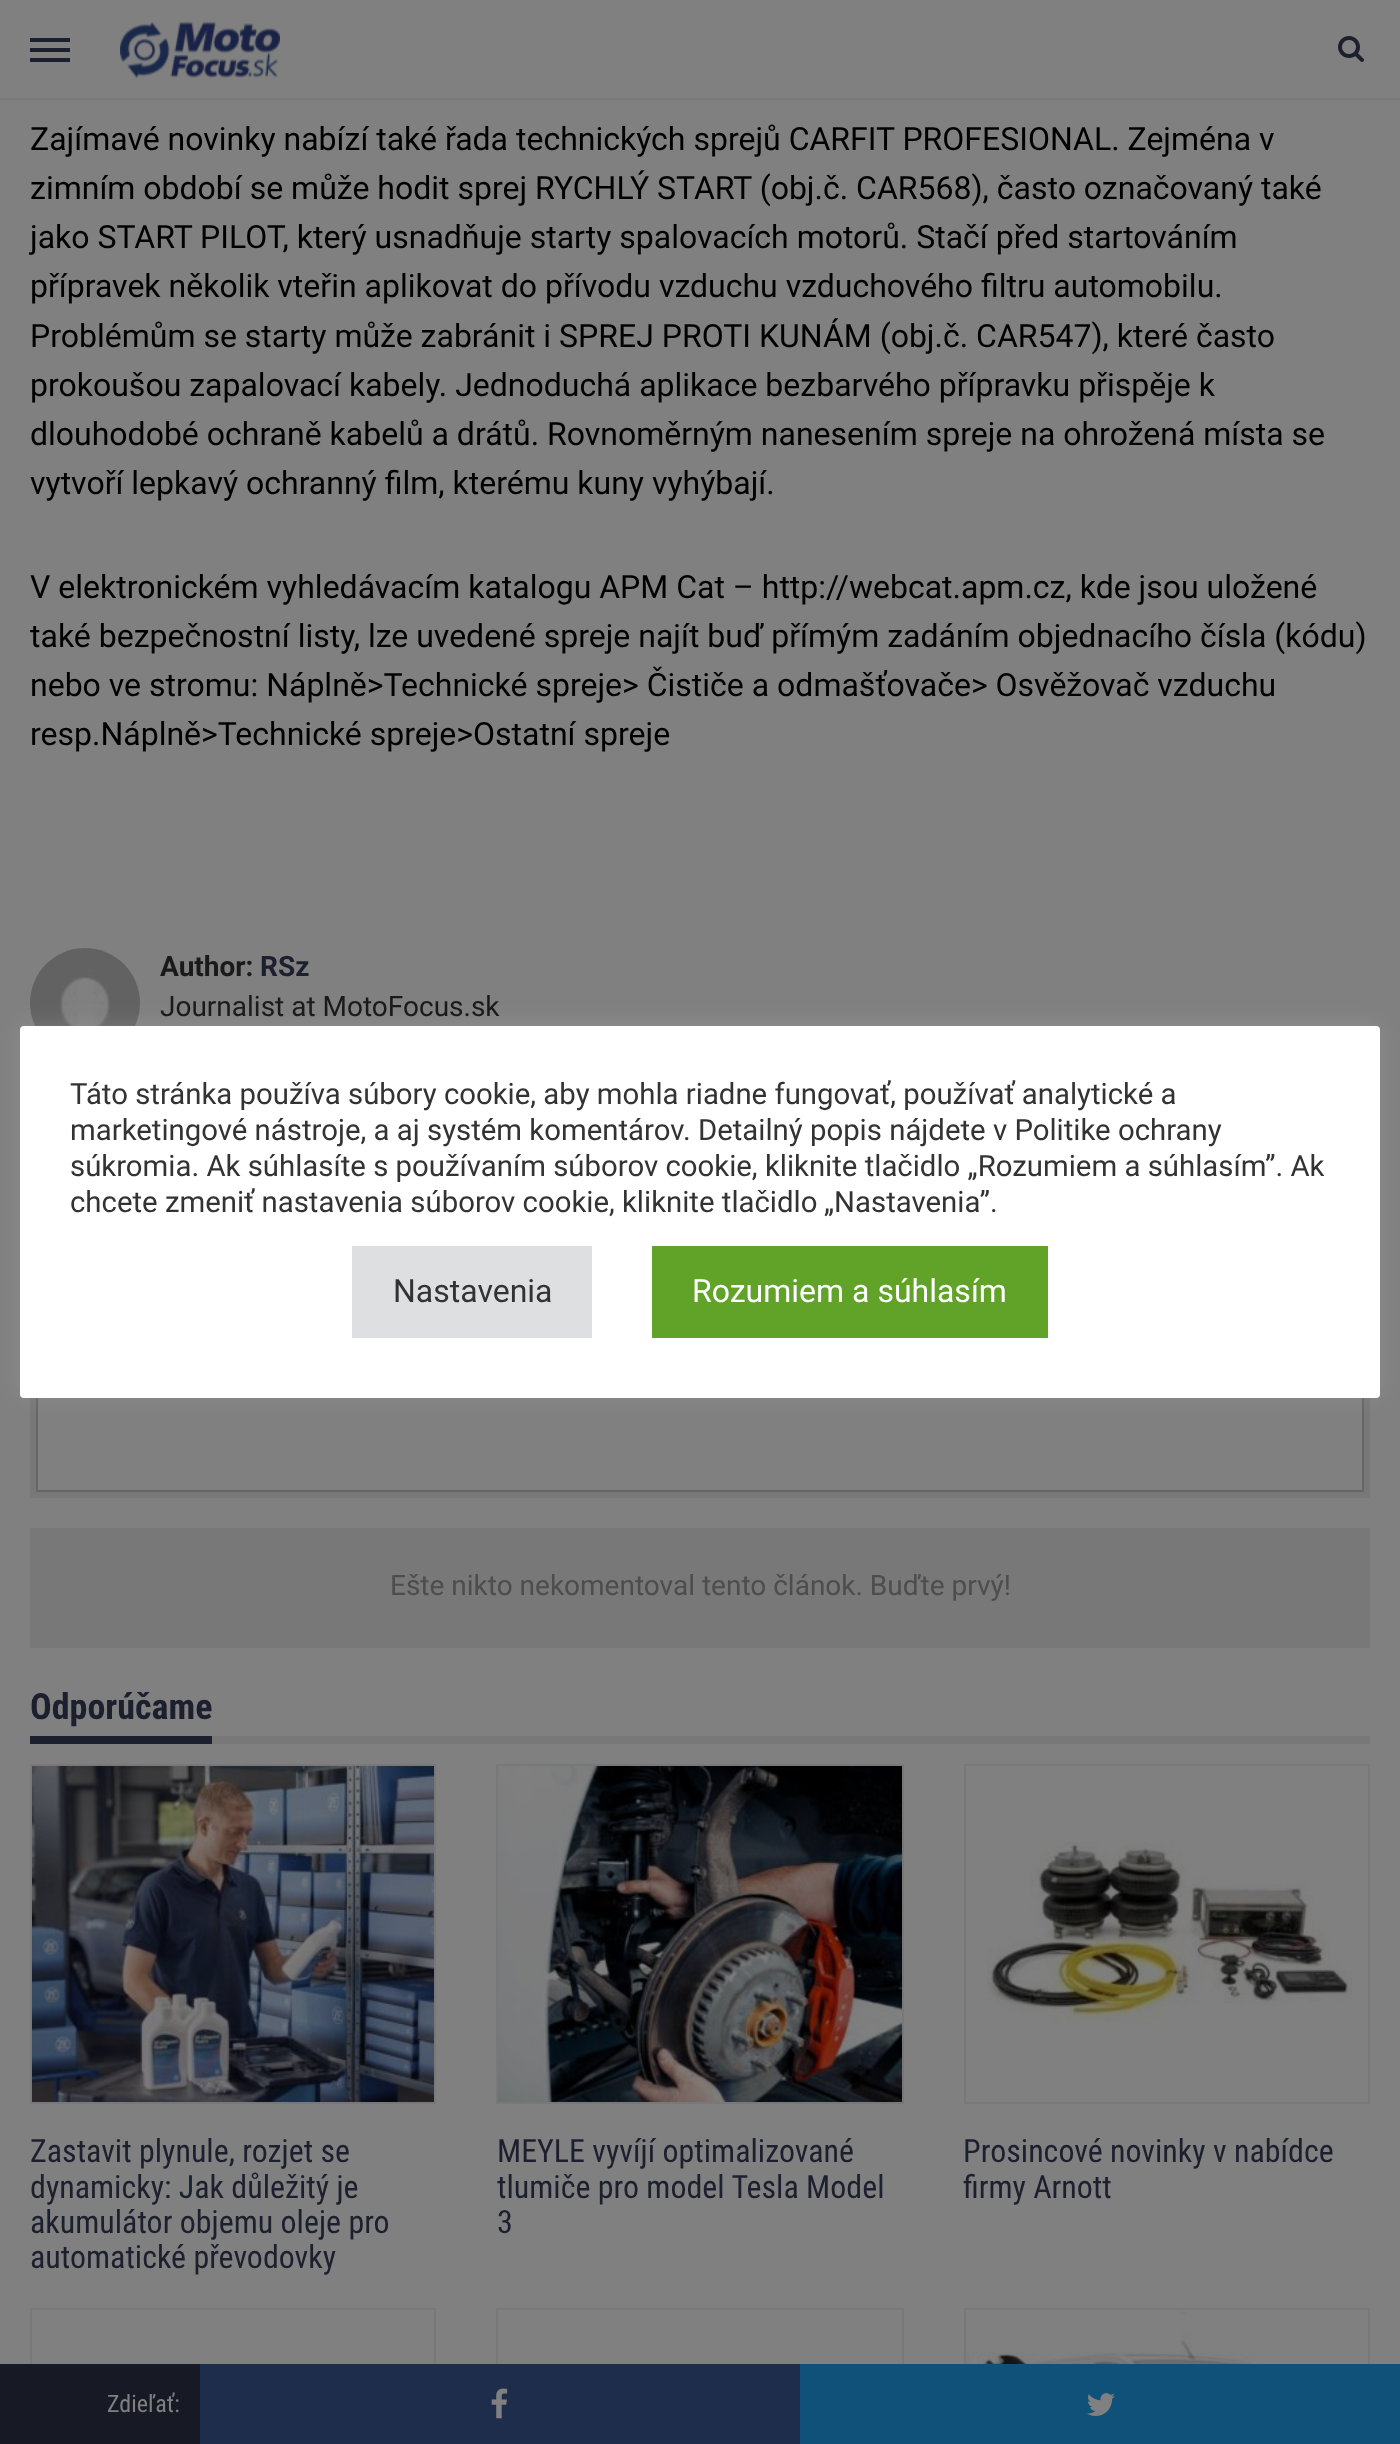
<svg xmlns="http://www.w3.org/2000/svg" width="1400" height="2444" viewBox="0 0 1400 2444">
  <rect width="100%" height="100%" fill="#808080"/>
  <path d="M0 98h1400v2H0z" fill="#797979"/>
  <path d="M30 48h40v4H30z" fill="#1c1f2d"/>
  <path d="M30 38h40v4H30z" fill="#1c1f2d"/>
  <path d="M30 58h40v4H30z" fill="#1c1f2d"/>
  <image x="120" y="21" width="160" height="58" href="img/1.png"/>
  <image x="1338" y="36" width="26" height="26" href="img/2.png"/>
  <image x="30" y="948" width="110" height="78" href="img/3.png"/>
  <path d="M30 1398h1340v100H30z" fill="#787878"/>
  <path d="M38 1398h1324v92H38z" fill="#808080"/>
  <path d="M37 1293h1326v198H37z" fill="none" stroke="#666" stroke-width="2"/>
  <path d="M30 1528h1340v120H30z" fill="#787878"/>
  <path d="M212 1736h1158v8H212z" fill="#787878"/>
  <path d="M30 1736h182v8H30z" fill="#1c1f2d"/>
  <path d="M31 1765h404v338H31z" fill="none" stroke="#787878" stroke-width="2"/>
  <image x="32" y="1766" width="402" height="336" href="img/4.png"/>
  <path d="M497 1765h406v338H497z" fill="none" stroke="#787878" stroke-width="2"/>
  <image x="498" y="1766" width="404" height="336" href="img/5.png"/>
  <path d="M965 1765h404v338H965z" fill="none" stroke="#787878" stroke-width="2"/>
  <image x="987" y="1842" width="365" height="182" href="img/6.png"/>
  <path d="M31 2309h404v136H31z" fill="none" stroke="#787878" stroke-width="2"/>
  <path d="M497 2309h406v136H497z" fill="none" stroke="#787878" stroke-width="2"/>
  <path d="M965 2309h404v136H965z" fill="none" stroke="#787878" stroke-width="2"/>
  <image x="966" y="2311" width="382" height="53" href="img/7.png"/>
  <path d="M0 2364h200v80H0z" fill="#171a25"/>
  <path d="M200 2364h600v80H200z" fill="#1e2d4c"/>
  <image x="491" y="2388" width="17" height="31" href="img/8.png"/>
  <path d="M800 2364h600v80H800z" fill="#0f5179"/>
  <image x="1087" y="2393" width="28" height="23" href="img/9.png"/>
  <rect x="20" y="1024" width="1360" height="372" rx="4" fill="#acabab4d" filter="blur(10px)"/>
  <rect x="20" y="1026" width="1360" height="372" rx="4" fill="#fff"/>
  <path d="M352 1246h240v92H352z" fill="#dedfe0"/>
  <path d="M652 1246h396v92H652z" fill="#61a229"/>
  <g font-family="Roboto" font-size="32" fill="#000">
    <text x="30" y="150">Zajímavé novinky nabízí také řada technických sprejů CARFIT PROFESIONAL. Zejména v</text>
    <text x="30" y="199">zimním období se může hodit sprej RYCHLÝ START (obj.č. CAR568), často označovaný také</text>
    <text x="30" y="248">jako START PILOT, který usnadňuje starty spalovacích motorů. Stačí před startováním</text>
    <text x="30" y="297">přípravek několik vteřin aplikovat do přívodu vzduchu vzduchového filtru automobilu.</text>
    <text x="30" y="347">Problémům se starty může zabránit i SPREJ PROTI KUNÁM (obj.č. CAR547), které často</text>
    <text x="30" y="396">prokoušou zapalovací kabely. Jednoduchá aplikace bezbarvého přípravku přispěje k</text>
    <text x="30" y="445">dlouhodobé ochraně kabelů a drátů. Rovnoměrným nanesením spreje na ohrožená místa se</text>
    <text x="30" y="494">vytvoří lepkavý ochranný film, kterému kuny vyhýbají.</text>
    <text x="30" y="598">V elektronickém vyhledávacím katalogu APM Cat – http://webcat.apm.cz, kde jsou uložené</text>
    <text x="30" y="647">také bezpečnostní listy, lze uvedené spreje najít buď přímým zadáním objednacího čísla (kódu)</text>
    <text x="30" y="696">nebo ve stromu: Náplně&gt;Technické spreje&gt; Čističe a odmašťovače&gt; Osvěžovač vzduchu</text>
    <text x="30" y="745">resp.Náplně&gt;Technické spreje&gt;Ostatní spreje</text>
  </g>
  <text x="160" y="976" font-family="Roboto" font-size="28" font-weight="bold" fill="#1a1a1a">Author:</text>
  <text x="260" y="976" font-family="Roboto" font-size="28" font-weight="bold" fill="#1c1f2d">RSz</text>
  <text x="160" y="1016" font-family="Roboto" font-size="28" fill="#1a1a1a">Journalist at MotoFocus.sk</text>
  <text x="390" y="1595" font-family="Roboto" font-size="28" fill="#4d4d4d">Ešte nikto nekomentoval tento článok. Buďte prvý!</text>
  <text x="30" y="1719" font-family="Roboto Condensed" font-size="36" font-weight="bold" fill="#1c1f2d">Odporúčame</text>
  <g font-family="Roboto Condensed" font-size="32" fill="#1c1f2d">
    <text x="30" y="2162">Zastavit plynule, rozjet se</text>
    <text x="30" y="2198">dynamicky: Jak důležitý je</text>
    <text x="30" y="2233">akumulátor objemu oleje pro</text>
    <text x="30" y="2268">automatické převodovky</text>
    <text x="497" y="2162">MEYLE vyvíjí optimalizované</text>
    <text x="497" y="2198">tlumiče pro model Tesla Model</text>
    <text x="497" y="2233">3</text>
    <text x="963" y="2162">Prosincové novinky v nabídce</text>
    <text x="963" y="2198">firmy Arnott</text>
  </g>
  <text x="107" y="2412" font-family="Roboto Condensed" font-size="24" fill="#808080">Zdieľať:</text>
  <g font-family="Roboto" font-size="29.35" fill="#333">
    <text x="70" y="1104">Táto stránka používa súbory cookie, aby mohla riadne fungovať, používať analytické a</text>
    <text x="70" y="1140">marketingové nástroje, a aj systém komentárov. Detailný popis nájdete v Politike ochrany</text>
    <text x="70" y="1176">súkromia. Ak súhlasíte s používaním súborov cookie, kliknite tlačidlo „Rozumiem a súhlasím”. Ak</text>
    <text x="70" y="1212">chcete zmeniť nastavenia súborov cookie, kliknite tlačidlo</text>
    <text x="824" y="1212">„Nastavenia”.</text>
  </g>
  <text x="393" y="1302" font-family="Roboto" font-size="32" fill="#333">Nastavenia</text>
  <text x="692" y="1302" font-family="Roboto" font-size="32" fill="#fff">Rozumiem a súhlasím</text>
</svg>
